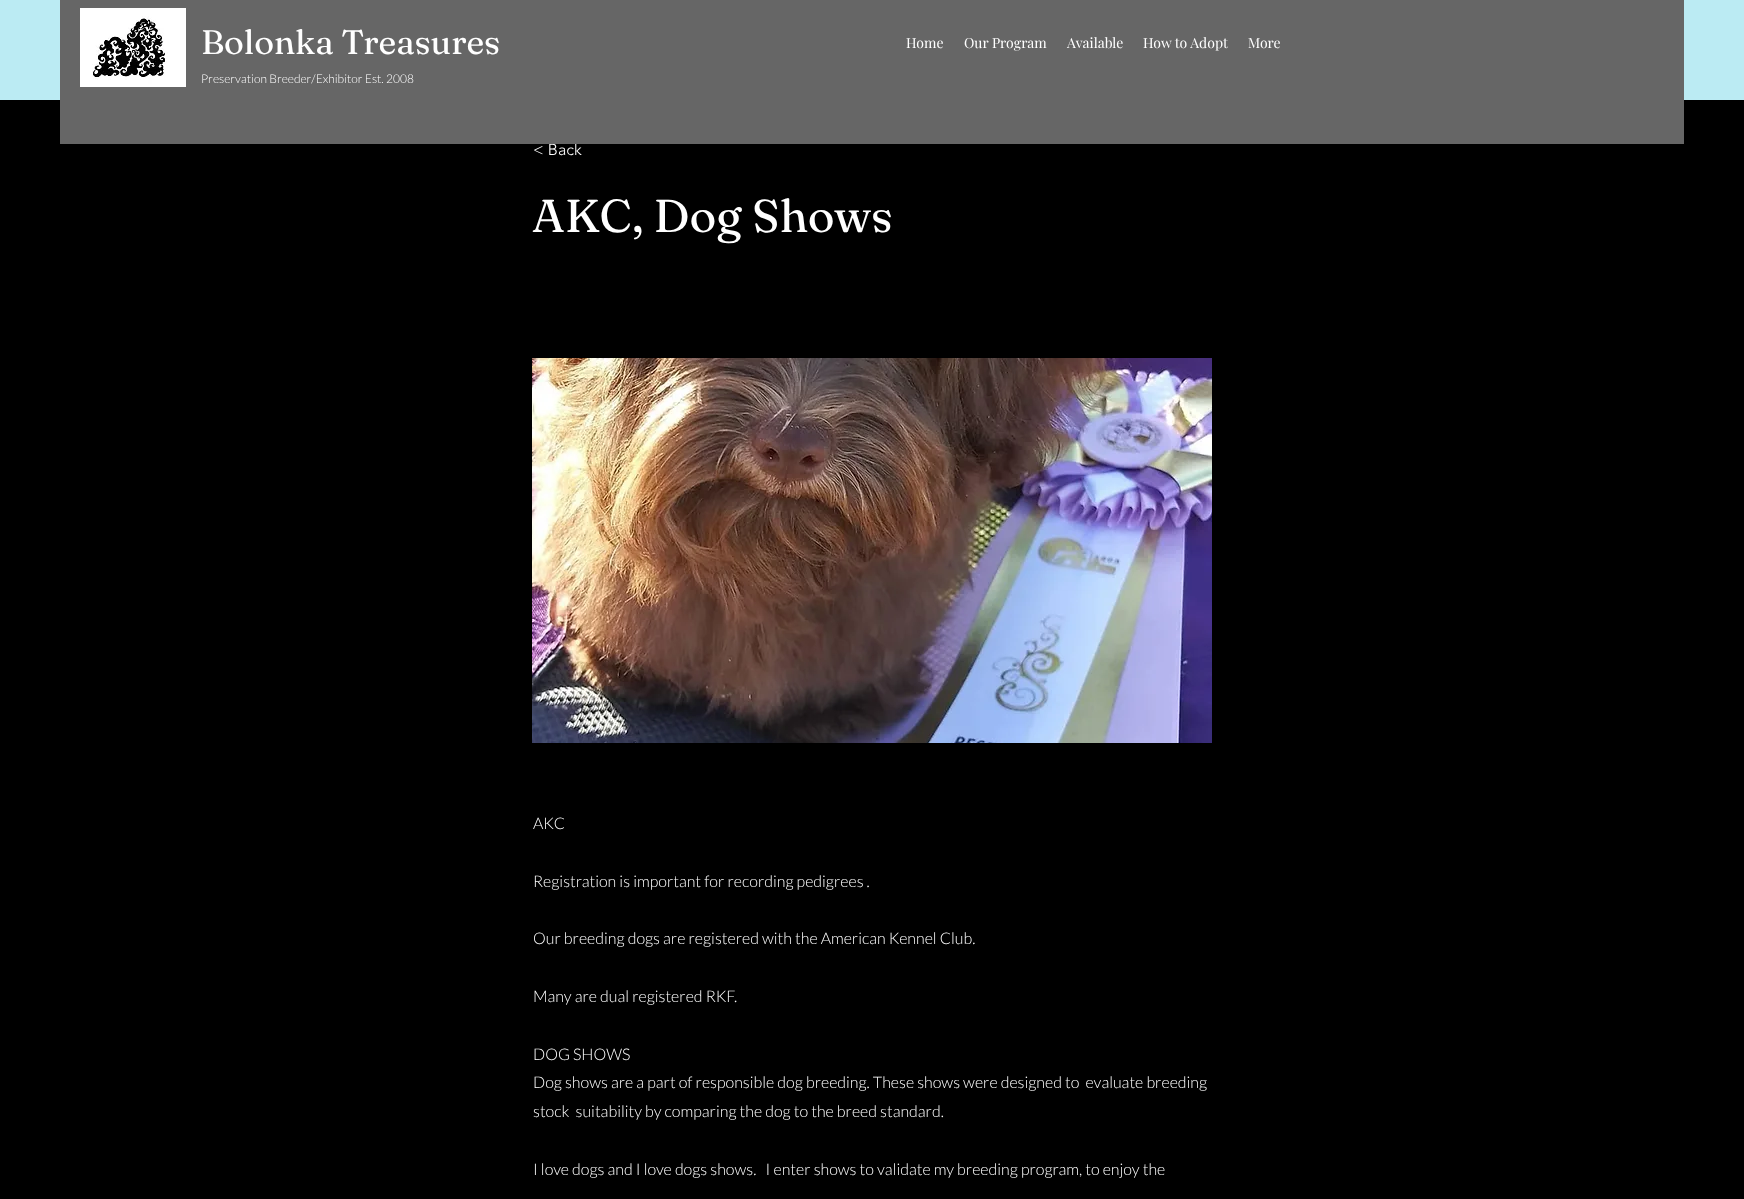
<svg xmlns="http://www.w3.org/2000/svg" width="1744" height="1199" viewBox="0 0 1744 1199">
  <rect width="100%" height="100%" fill="#000"/>
  <path d="M0 0h1744v100H0z" fill="#bbebf3"/>
  <image x="532" y="358" width="680" height="385" href="img/2.png"/>
  <text x="533" y="155" font-family="'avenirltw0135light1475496'" font-size="16" font-weight="300" fill="#fff">&lt; Back</text>
  <path d="M60 0h1624v144H60z" fill="#666"/>
  <g font-family="Playfair Display" font-size="14" fill="#fff">
    <text x="1248" y="48">More</text>
    <text x="1143" y="48">How to Adopt</text>
    <text x="1067" y="48">Available</text>
    <text x="964" y="48">Our Program</text>
    <text x="906" y="48">Home</text>
  </g>
  <text x="201" y="83" font-family="Lato" font-size="12" font-weight="300" fill="#fff">Preservation Breeder/Exhibitor Est. 2008</text>
  <text x="201" y="54" font-family="Fraunces" font-size="34" fill="#fff">Bolonka Treasures</text>
  <image x="80" y="8" width="106" height="79" href="img/1.png"/>
  <text x="532" y="232" font-family="Fraunces" font-size="46" fill="#fff">AKC, Dog Shows</text>
  <g font-family="Lato" font-size="16" font-weight="300" fill="#fff">
    <text x="533" y="829">AKC</text>
    <text x="533" y="887">Registration is important for recording pedigrees .</text>
    <text x="533" y="944">Our breeding dogs are registered with the American Kennel Club.</text>
    <text x="533" y="1002">Many are dual registered RKF.</text>
    <text x="533" y="1060">DOG SHOWS</text>
    <text x="533" y="1088" xml:space="preserve">Dog shows are a part of responsible dog breeding. These shows were designed to  evaluate breeding</text>
    <text x="533" y="1117" xml:space="preserve">stock  suitability by comparing the dog to the breed standard.</text>
    <text x="533" y="1175" xml:space="preserve">I love dogs and I love dogs shows.   I enter shows to validate my breeding program, to enjoy the</text>
  </g>
</svg>
